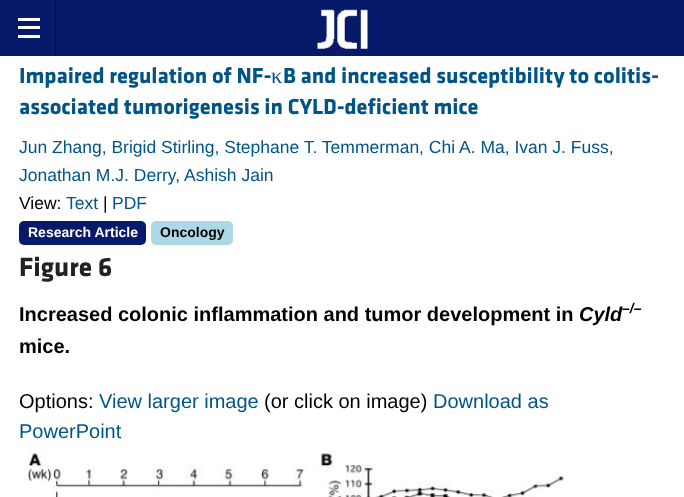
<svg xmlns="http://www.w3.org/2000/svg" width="684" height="497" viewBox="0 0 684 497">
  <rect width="100%" height="100%" fill="#fff"/>
  <path d="M0 0h684v56H0z" fill="#071a69"/>
  <path d="M55 0h1v56H55z" fill="#040d35"/>
  <path d="M18 35h22v3H18z" fill="#fff"/>
  <path d="M18 26h22v3H18z" fill="#fff"/>
  <path d="M18 18h22v3H18z" fill="#fff"/>
  <image x="317" y="9" width="51" height="40" href="img/1.png"/>
  <rect x="19" y="221" width="127" height="24" rx="5" fill="#071a69"/>
  <rect x="151" y="221" width="82" height="24" rx="5" fill="#add8e6"/>
  <image x="27" y="450" width="539" height="47" href="img/2.png"/>
  <text x="19" y="83" font-family="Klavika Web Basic" font-size="22.5" font-weight="bold" fill="#015486">Impaired regulation of NF-</text>
  <text x="271" y="83" font-family="Liberation Serif" font-size="22.5" fill="#015486">κ</text>
  <g font-family="Klavika Web Basic" font-size="22.5" font-weight="bold" fill="#015486">
    <text x="283" y="83">B and increased susceptibility to colitis-</text>
    <text x="19" y="114">associated tumorigenesis in CYLD-deficient mice</text>
  </g>
  <g font-family="Liberation Sans" font-size="17.5" fill="#015486">
    <text x="19" y="153">Jun Zhang, Brigid Stirling, Stephane T. Temmerman, Chi A. Ma, Ivan J. Fuss,</text>
    <text x="19" y="181">Jonathan M.J. Derry, Ashish Jain</text>
  </g>
  <text x="19" y="209" font-family="Liberation Sans" font-size="17.5" fill="#000">View:</text>
  <text x="66" y="209" font-family="Liberation Sans" font-size="17.5" fill="#015486">Text</text>
  <text x="103" y="209" font-family="Liberation Sans" font-size="17.5" fill="#000">|</text>
  <text x="112" y="209" font-family="Liberation Sans" font-size="17.5" fill="#015486">PDF</text>
  <text x="28" y="237" font-family="Liberation Sans" font-size="14" font-weight="bold" fill="#fff">Research Article</text>
  <text x="160" y="237" font-family="Liberation Sans" font-size="14" font-weight="bold" fill="#000">Oncology</text>
  <text x="19" y="276" font-family="Klavika Web Basic" font-size="27.5" font-weight="bold" fill="#222">Figure 6</text>
  <text x="19" y="321" font-family="Liberation Sans" font-size="20" font-weight="bold" fill="#000">Increased colonic inflammation and tumor development in</text>
  <text x="579" y="321" font-family="Liberation Sans" font-size="20" font-weight="bold" font-style="italic" fill="#000">Cyld</text>
  <text x="622" y="313" font-family="Liberation Sans" font-size="14" font-weight="bold" font-style="italic" fill="#000">–/–</text>
  <text x="19" y="353" font-family="Liberation Sans" font-size="20" font-weight="bold" fill="#000">mice.</text>
  <text x="19" y="408" font-family="Liberation Sans" font-size="20" fill="#000">Options:</text>
  <text x="99" y="408" font-family="Liberation Sans" font-size="20" fill="#015486">View larger image</text>
  <text x="264" y="408" font-family="Liberation Sans" font-size="20" fill="#000">(or click on image)</text>
  <g font-family="Liberation Sans" font-size="20" fill="#015486">
    <text x="433" y="408">Download as</text>
    <text x="19" y="438">PowerPoint</text>
  </g>
</svg>
